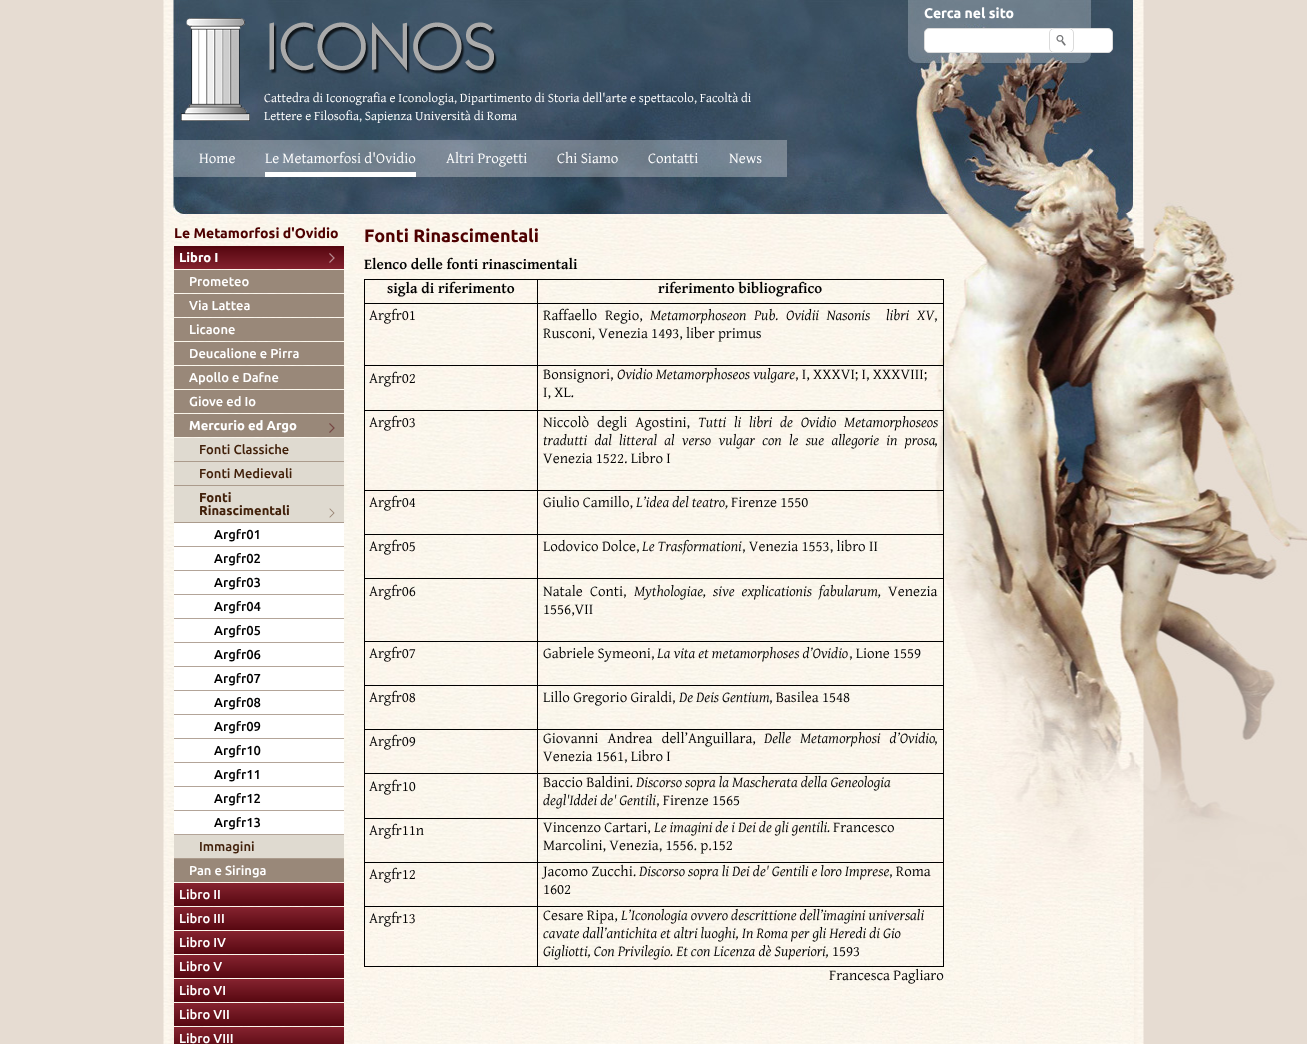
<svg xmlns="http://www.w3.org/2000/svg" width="1307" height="1044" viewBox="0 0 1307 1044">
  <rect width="100%" height="100%" fill="#e6dcd2"/>
  <image x="163" y="900" width="981" height="144" href="img/1.png"/>
  <image x="163" y="0" width="1144" height="900" href="img/2.png"/>
  <image x="174" y="901" width="960" height="143" href="img/3.png"/>
  <image x="174" y="0" width="960" height="215" href="img/4.png"/>
  <rect x="924.5" y="28.5" width="188" height="24" rx="4.5" fill="#fff" stroke="#dbdbdb"/>
  <rect x="1049" y="28" width="25" height="25" rx="5" fill="#fff"/>
  <image x="1056" y="35" width="10" height="11" href="img/5.png"/>
  <rect x="1049.5" y="28.5" width="24" height="24" rx="4.5" fill="none" stroke="#dbdbdb"/>
  <image x="181" y="18" width="316" height="103" href="img/6.png"/>
  <path d="M174 140h613v37H174z" fill="#ffffff4d"/>
  <path d="M265 172h151v5H265z" fill="#fff"/>
  <image x="174" y="215" width="960" height="686" href="img/7.png"/>
  <path d="M174 246h170v2H174z" fill="#54060f"/>
  <image x="174" y="248" width="170" height="21" href="img/8.png"/>
  <path d="M174 270h170v23H174z" fill="#998879"/>
  <path d="M174 294h170v23H174z" fill="#998879"/>
  <path d="M174 318h170v23H174z" fill="#998879"/>
  <path d="M174 342h170v23H174z" fill="#998879"/>
  <path d="M174 366h170v23H174z" fill="#998879"/>
  <path d="M174 390h170v23H174z" fill="#998879"/>
  <path d="M174 414h170v23H174z" fill="#998879"/>
  <image x="329" y="423" width="6" height="10" href="img/9.png"/>
  <path d="M174 438h170v23H174z" fill="#dfdad0"/>
  <path d="M174 461h170v1H174z" fill="#ab9b8c"/>
  <path d="M174 462h170v23H174z" fill="#dfdad0"/>
  <path d="M174 485h170v1H174z" fill="#ab9b8c"/>
  <path d="M174 486h170v36H174z" fill="#dfdad0"/>
  <image x="329" y="508" width="6" height="10" href="img/10.png"/>
  <path d="M174 522h170v1H174z" fill="#ab9b8c"/>
  <path d="M174 523h170v23H174z" fill="#fff"/>
  <path d="M174 546h170v1H174z" fill="#b3a498"/>
  <path d="M174 547h170v23H174z" fill="#fff"/>
  <path d="M174 570h170v1H174z" fill="#b3a498"/>
  <path d="M174 571h170v23H174z" fill="#fff"/>
  <path d="M174 594h170v1H174z" fill="#b3a498"/>
  <path d="M174 595h170v23H174z" fill="#fff"/>
  <path d="M174 618h170v1H174z" fill="#b3a498"/>
  <path d="M174 619h170v23H174z" fill="#fff"/>
  <path d="M174 642h170v1H174z" fill="#b3a498"/>
  <path d="M174 643h170v23H174z" fill="#fff"/>
  <path d="M174 666h170v1H174z" fill="#b3a498"/>
  <path d="M174 667h170v23H174z" fill="#fff"/>
  <path d="M174 690h170v1H174z" fill="#b3a498"/>
  <path d="M174 691h170v23H174z" fill="#fff"/>
  <path d="M174 714h170v1H174z" fill="#b3a498"/>
  <path d="M174 715h170v23H174z" fill="#fff"/>
  <path d="M174 738h170v1H174z" fill="#b3a498"/>
  <path d="M174 739h170v23H174z" fill="#fff"/>
  <path d="M174 762h170v1H174z" fill="#b3a498"/>
  <path d="M174 763h170v23H174z" fill="#fff"/>
  <path d="M174 786h170v1H174z" fill="#b3a498"/>
  <path d="M174 787h170v23H174z" fill="#fff"/>
  <path d="M174 810h170v1H174z" fill="#b3a498"/>
  <path d="M174 811h170v23H174z" fill="#fff"/>
  <path d="M174 834h170v1H174z" fill="#b3a498"/>
  <path d="M174 835h170v23H174z" fill="#dfdad0"/>
  <path d="M174 858h170v1H174z" fill="#ab9b8c"/>
  <path d="M174 859h170v23H174z" fill="#998879"/>
  <path d="M174 883h170v2H174z" fill="#85222e"/>
  <image x="174" y="885" width="170" height="21" href="img/11.png"/>
  <path d="M174 907h170v2H174z" fill="#85222e"/>
  <image x="174" y="909" width="170" height="21" href="img/11.png"/>
  <path d="M174 931h170v2H174z" fill="#85222e"/>
  <image x="174" y="933" width="170" height="21" href="img/11.png"/>
  <path d="M174 955h170v2H174z" fill="#85222e"/>
  <image x="174" y="957" width="170" height="21" href="img/11.png"/>
  <path d="M174 979h170v2H174z" fill="#85222e"/>
  <image x="174" y="981" width="170" height="21" href="img/11.png"/>
  <path d="M174 1003h170v2H174z" fill="#85222e"/>
  <image x="174" y="1005" width="170" height="21" href="img/11.png"/>
  <path d="M174 1027h170v2H174z" fill="#85222e"/>
  <image x="174" y="1029" width="170" height="15" href="img/12.png"/>
  <path d="M364 279h580v1H364z" fill="#000"/>
  <path d="M943 303h1v664H943z" fill="#000"/>
  <path d="M943 279h1v25H943z" fill="#000"/>
  <path d="M537 966h407v1H537z" fill="#000"/>
  <path d="M537 906h1v61H537z" fill="#000"/>
  <path d="M537 906h407v1H537z" fill="#000"/>
  <path d="M537 862h1v45H537z" fill="#000"/>
  <path d="M537 862h407v1H537z" fill="#000"/>
  <path d="M537 818h1v45H537z" fill="#000"/>
  <path d="M537 818h407v1H537z" fill="#000"/>
  <path d="M537 773h1v46H537z" fill="#000"/>
  <path d="M537 773h407v1H537z" fill="#000"/>
  <path d="M537 729h1v45H537z" fill="#000"/>
  <path d="M537 729h407v1H537z" fill="#000"/>
  <path d="M537 685h1v45H537z" fill="#000"/>
  <path d="M537 685h407v1H537z" fill="#000"/>
  <path d="M537 641h1v45H537z" fill="#000"/>
  <path d="M537 641h407v1H537z" fill="#000"/>
  <path d="M537 578h1v64H537z" fill="#000"/>
  <path d="M537 578h407v1H537z" fill="#000"/>
  <path d="M537 534h1v45H537z" fill="#000"/>
  <path d="M537 534h407v1H537z" fill="#000"/>
  <path d="M537 490h1v45H537z" fill="#000"/>
  <path d="M537 490h407v1H537z" fill="#000"/>
  <path d="M537 410h1v81H537z" fill="#000"/>
  <path d="M537 410h407v1H537z" fill="#000"/>
  <path d="M537 365h1v46H537z" fill="#000"/>
  <path d="M537 365h407v1H537z" fill="#000"/>
  <path d="M537 303h1v63H537z" fill="#000"/>
  <path d="M537 303h407v1H537z" fill="#000"/>
  <path d="M537 279h1v25H537z" fill="#000"/>
  <path d="M364 966h174v1H364z" fill="#000"/>
  <path d="M364 906h1v61H364z" fill="#000"/>
  <path d="M364 906h174v1H364z" fill="#000"/>
  <path d="M364 862h1v45H364z" fill="#000"/>
  <path d="M364 862h174v1H364z" fill="#000"/>
  <path d="M364 818h1v45H364z" fill="#000"/>
  <path d="M364 818h174v1H364z" fill="#000"/>
  <path d="M364 773h1v46H364z" fill="#000"/>
  <path d="M364 773h174v1H364z" fill="#000"/>
  <path d="M364 729h1v45H364z" fill="#000"/>
  <path d="M364 729h174v1H364z" fill="#000"/>
  <path d="M364 685h1v45H364z" fill="#000"/>
  <path d="M364 685h174v1H364z" fill="#000"/>
  <path d="M364 641h1v45H364z" fill="#000"/>
  <path d="M364 641h174v1H364z" fill="#000"/>
  <path d="M364 578h1v64H364z" fill="#000"/>
  <path d="M364 578h174v1H364z" fill="#000"/>
  <path d="M364 534h1v45H364z" fill="#000"/>
  <path d="M364 534h174v1H364z" fill="#000"/>
  <path d="M364 490h1v45H364z" fill="#000"/>
  <path d="M364 490h174v1H364z" fill="#000"/>
  <path d="M364 410h1v81H364z" fill="#000"/>
  <path d="M364 410h174v1H364z" fill="#000"/>
  <path d="M364 365h1v46H364z" fill="#000"/>
  <path d="M364 365h174v1H364z" fill="#000"/>
  <path d="M364 303h1v63H364z" fill="#000"/>
  <path d="M364 303h174v1H364z" fill="#000"/>
  <path d="M364 279h1v25H364z" fill="#000"/>
  <text x="924" y="18" font-family="Ubuntu" font-size="14" font-weight="bold" fill="#fff">Cerca nel sito</text>
  <g font-family="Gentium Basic" font-size="13" fill="#fff">
    <text x="264" y="102">Cattedra di Iconografia e Iconologia, Dipartimento di Storia dell'arte e spettacolo, Facoltà di</text>
    <text x="264" y="120">Lettere e Filosofia, Sapienza Università di Roma</text>
  </g>
  <g font-family="Gentium Basic" font-size="15" fill="#fff">
    <text x="199" y="163">Home</text>
    <text x="265" y="163">Le Metamorfosi d'Ovidio</text>
    <text x="446" y="163">Altri Progetti</text>
    <text x="557" y="163">Chi Siamo</text>
    <text x="648" y="163">Contatti</text>
    <text x="729" y="163">News</text>
  </g>
  <text x="174" y="238" font-family="Ubuntu" font-size="14" font-weight="bold" fill="#4e0000">Le Metamorfosi d'Ovidio</text>
  <text x="179" y="262" font-family="Ubuntu" font-size="13" font-weight="bold" fill="#fff">Libro I</text>
  <g font-family="Ubuntu" font-size="13" font-weight="500" fill="#fff">
    <text x="189" y="286">Prometeo</text>
    <text x="189" y="310">Via Lattea</text>
    <text x="189" y="334">Licaone</text>
    <text x="189" y="358">Deucalione e Pirra</text>
    <text x="189" y="382">Apollo e Dafne</text>
    <text x="189" y="406">Giove ed Io</text>
  </g>
  <text x="189" y="430" font-family="Ubuntu" font-size="13" font-weight="bold" fill="#fff">Mercurio ed Argo</text>
  <g font-family="Ubuntu" font-size="13" font-weight="500" fill="#42210b">
    <text x="199" y="454">Fonti Classiche</text>
    <text x="199" y="478">Fonti Medievali</text>
  </g>
  <g font-family="Ubuntu" font-size="13" font-weight="bold" fill="#42210b">
    <text x="199" y="502">Fonti</text>
    <text x="199" y="515">Rinascimentali</text>
  </g>
  <g font-family="Ubuntu" font-size="13" font-weight="500" fill="#000">
    <text x="214" y="539">Argfr01</text>
    <text x="214" y="563">Argfr02</text>
    <text x="214" y="587">Argfr03</text>
    <text x="214" y="611">Argfr04</text>
    <text x="214" y="635">Argfr05</text>
    <text x="214" y="659">Argfr06</text>
    <text x="214" y="683">Argfr07</text>
    <text x="214" y="707">Argfr08</text>
    <text x="214" y="731">Argfr09</text>
    <text x="214" y="755">Argfr10</text>
    <text x="214" y="779">Argfr11</text>
    <text x="214" y="803">Argfr12</text>
    <text x="214" y="827">Argfr13</text>
  </g>
  <text x="199" y="851" font-family="Ubuntu" font-size="13" font-weight="500" fill="#42210b">Immagini</text>
  <g font-family="Ubuntu" font-size="13" font-weight="500" fill="#fff">
    <text x="189" y="875">Pan e Siringa</text>
    <text x="179" y="899">Libro II</text>
    <text x="179" y="923">Libro III</text>
    <text x="179" y="947">Libro IV</text>
    <text x="179" y="971">Libro V</text>
    <text x="179" y="995">Libro VI</text>
    <text x="179" y="1019">Libro VII</text>
    <text x="179" y="1043">Libro VIII</text>
  </g>
  <text x="364" y="242" font-family="Ubuntu" font-size="18" font-weight="bold" fill="#4e0000">Fonti Rinascimentali</text>
  <g font-family="Gentium Basic" font-size="15" font-weight="bold" fill="#000">
    <text x="364" y="269">Elenco delle fonti rinascimentali</text>
    <text x="387" y="293">sigla di riferimento</text>
    <text x="658" y="293">riferimento bibliografico</text>
  </g>
  <g font-family="Gentium Basic" font-size="15" fill="#000">
    <text x="369" y="320">Argfr01</text>
    <text x="543" y="320" word-spacing="4.5">Raffaello Regio,</text>
  </g>
  <g font-family="Gentium Basic" font-size="15" font-style="italic" fill="#000">
    <text x="650" y="320" word-spacing="4.5">Metamorphoseon Pub. Ovidii Nasonis</text>
    <text x="886" y="320" word-spacing="4.5">libri XV</text>
  </g>
  <g font-family="Gentium Basic" font-size="15" fill="#000">
    <text x="934" y="320">,</text>
    <text x="543" y="338">Rusconi, Venezia 1493, liber primus</text>
    <text x="369" y="383">Argfr02</text>
    <text x="543" y="379">Bonsignori,</text>
  </g>
  <text x="617" y="379" font-family="Gentium Basic" font-size="15" font-style="italic" fill="#000">Ovidio Metamorphoseos vulgare</text>
  <g font-family="Gentium Basic" font-size="15" fill="#000">
    <text x="795" y="379">, I, XXXVI; I, XXXVIII;</text>
    <text x="543" y="397">I, XL.</text>
    <text x="369" y="427">Argfr03</text>
    <text x="543" y="427" word-spacing="4.75">Niccolò degli Agostini,</text>
  </g>
  <g font-family="Gentium Basic" font-size="15" font-style="italic" fill="#000">
    <text x="698" y="427" word-spacing="4.75">Tutti li libri de Ovidio Metamorphoseos</text>
    <text x="543" y="445" word-spacing="4.25">tradutti dal litteral al verso vulgar con le sue allegorie in prosa</text>
  </g>
  <g font-family="Gentium Basic" font-size="15" fill="#000">
    <text x="934" y="445">,</text>
    <text x="543" y="463">Venezia 1522. Libro I</text>
    <text x="369" y="507">Argfr04</text>
    <text x="543" y="507">Giulio Camillo,</text>
  </g>
  <text x="636" y="507" font-family="Gentium Basic" font-size="15" font-style="italic" fill="#000">L’idea del teatro,</text>
  <g font-family="Gentium Basic" font-size="15" fill="#000">
    <text x="731" y="507">Firenze 1550</text>
    <text x="369" y="551">Argfr05</text>
    <text x="543" y="551">Lodovico Dolce,</text>
  </g>
  <text x="642" y="551" font-family="Gentium Basic" font-size="15" font-style="italic" fill="#000">Le Trasformationi</text>
  <g font-family="Gentium Basic" font-size="15" fill="#000">
    <text x="742" y="551">, Venezia 1553, libro II</text>
    <text x="369" y="596">Argfr06</text>
    <text x="543" y="596" word-spacing="4">Natale Conti,</text>
  </g>
  <text x="634" y="596" word-spacing="4" font-family="Gentium Basic" font-size="15" font-style="italic" fill="#000">Mythologiae, sive explicationis fabularum,</text>
  <g font-family="Gentium Basic" font-size="15" fill="#000">
    <text x="888" y="596">Venezia</text>
    <text x="543" y="614">1556,VII</text>
    <text x="369" y="658">Argfr07</text>
    <text x="543" y="658">Gabriele Symeoni,</text>
  </g>
  <text x="657" y="658" font-family="Gentium Basic" font-size="15" font-style="italic" fill="#000">La vita et metamorphoses d’Ovidio</text>
  <g font-family="Gentium Basic" font-size="15" fill="#000">
    <text x="849" y="658">, Lione 1559</text>
    <text x="369" y="702">Argfr08</text>
    <text x="543" y="702">Lillo Gregorio Giraldi,</text>
  </g>
  <text x="679" y="702" font-family="Gentium Basic" font-size="15" font-style="italic" fill="#000">De Deis Gentium</text>
  <g font-family="Gentium Basic" font-size="15" fill="#000">
    <text x="769" y="702">, Basilea 1548</text>
    <text x="369" y="746">Argfr09</text>
    <text x="543" y="743" word-spacing="6">Giovanni Andrea dell’Anguillara,</text>
  </g>
  <text x="764" y="743" word-spacing="6" font-family="Gentium Basic" font-size="15" font-style="italic" fill="#000">Delle Metamorphosi d’Ovidio</text>
  <g font-family="Gentium Basic" font-size="15" fill="#000">
    <text x="934" y="743">,</text>
    <text x="543" y="761">Venezia 1561, Libro I</text>
    <text x="369" y="791">Argfr10</text>
    <text x="543" y="787">Baccio Baldini.</text>
  </g>
  <g font-family="Gentium Basic" font-size="15" font-style="italic" fill="#000">
    <text x="636" y="787">Discorso sopra la Mascherata della Geneologia</text>
    <text x="543" y="805">degl'Iddei de' Gentili</text>
  </g>
  <g font-family="Gentium Basic" font-size="15" fill="#000">
    <text x="656" y="805">, Firenze 1565</text>
    <text x="369" y="835">Argfr11n</text>
    <text x="543" y="832">Vincenzo Cartari,</text>
  </g>
  <text x="654" y="832" font-family="Gentium Basic" font-size="15" font-style="italic" fill="#000">Le imagini de i Dei de gli gentili.</text>
  <g font-family="Gentium Basic" font-size="15" fill="#000">
    <text x="833" y="832">Francesco</text>
    <text x="543" y="850">Marcolini, Venezia, 1556. p.152</text>
    <text x="369" y="879">Argfr12</text>
    <text x="543" y="876">Jacomo Zucchi.</text>
  </g>
  <text x="639" y="876" font-family="Gentium Basic" font-size="15" font-style="italic" fill="#000">Discorso sopra li Dei de' Gentili e loro Imprese</text>
  <g font-family="Gentium Basic" font-size="15" fill="#000">
    <text x="889" y="876">, Roma</text>
    <text x="543" y="894">1602</text>
    <text x="369" y="923">Argfr13</text>
    <text x="543" y="920">Cesare Ripa,</text>
  </g>
  <g font-family="Gentium Basic" font-size="15" font-style="italic" fill="#000">
    <text x="621" y="920">L’Iconologia ovvero descrittione dell’imagini universali</text>
    <text x="543" y="938">cavate dall’antichita et altri luoghi, In Roma per gli Heredi di Gio</text>
    <text x="543" y="956">Gigliotti, Con Privilegio. Et con Licenza dè Superiori,</text>
  </g>
  <g font-family="Gentium Basic" font-size="15" fill="#000">
    <text x="832" y="956">1593</text>
    <text x="829" y="980">Francesca Pagliaro</text>
  </g>
</svg>
